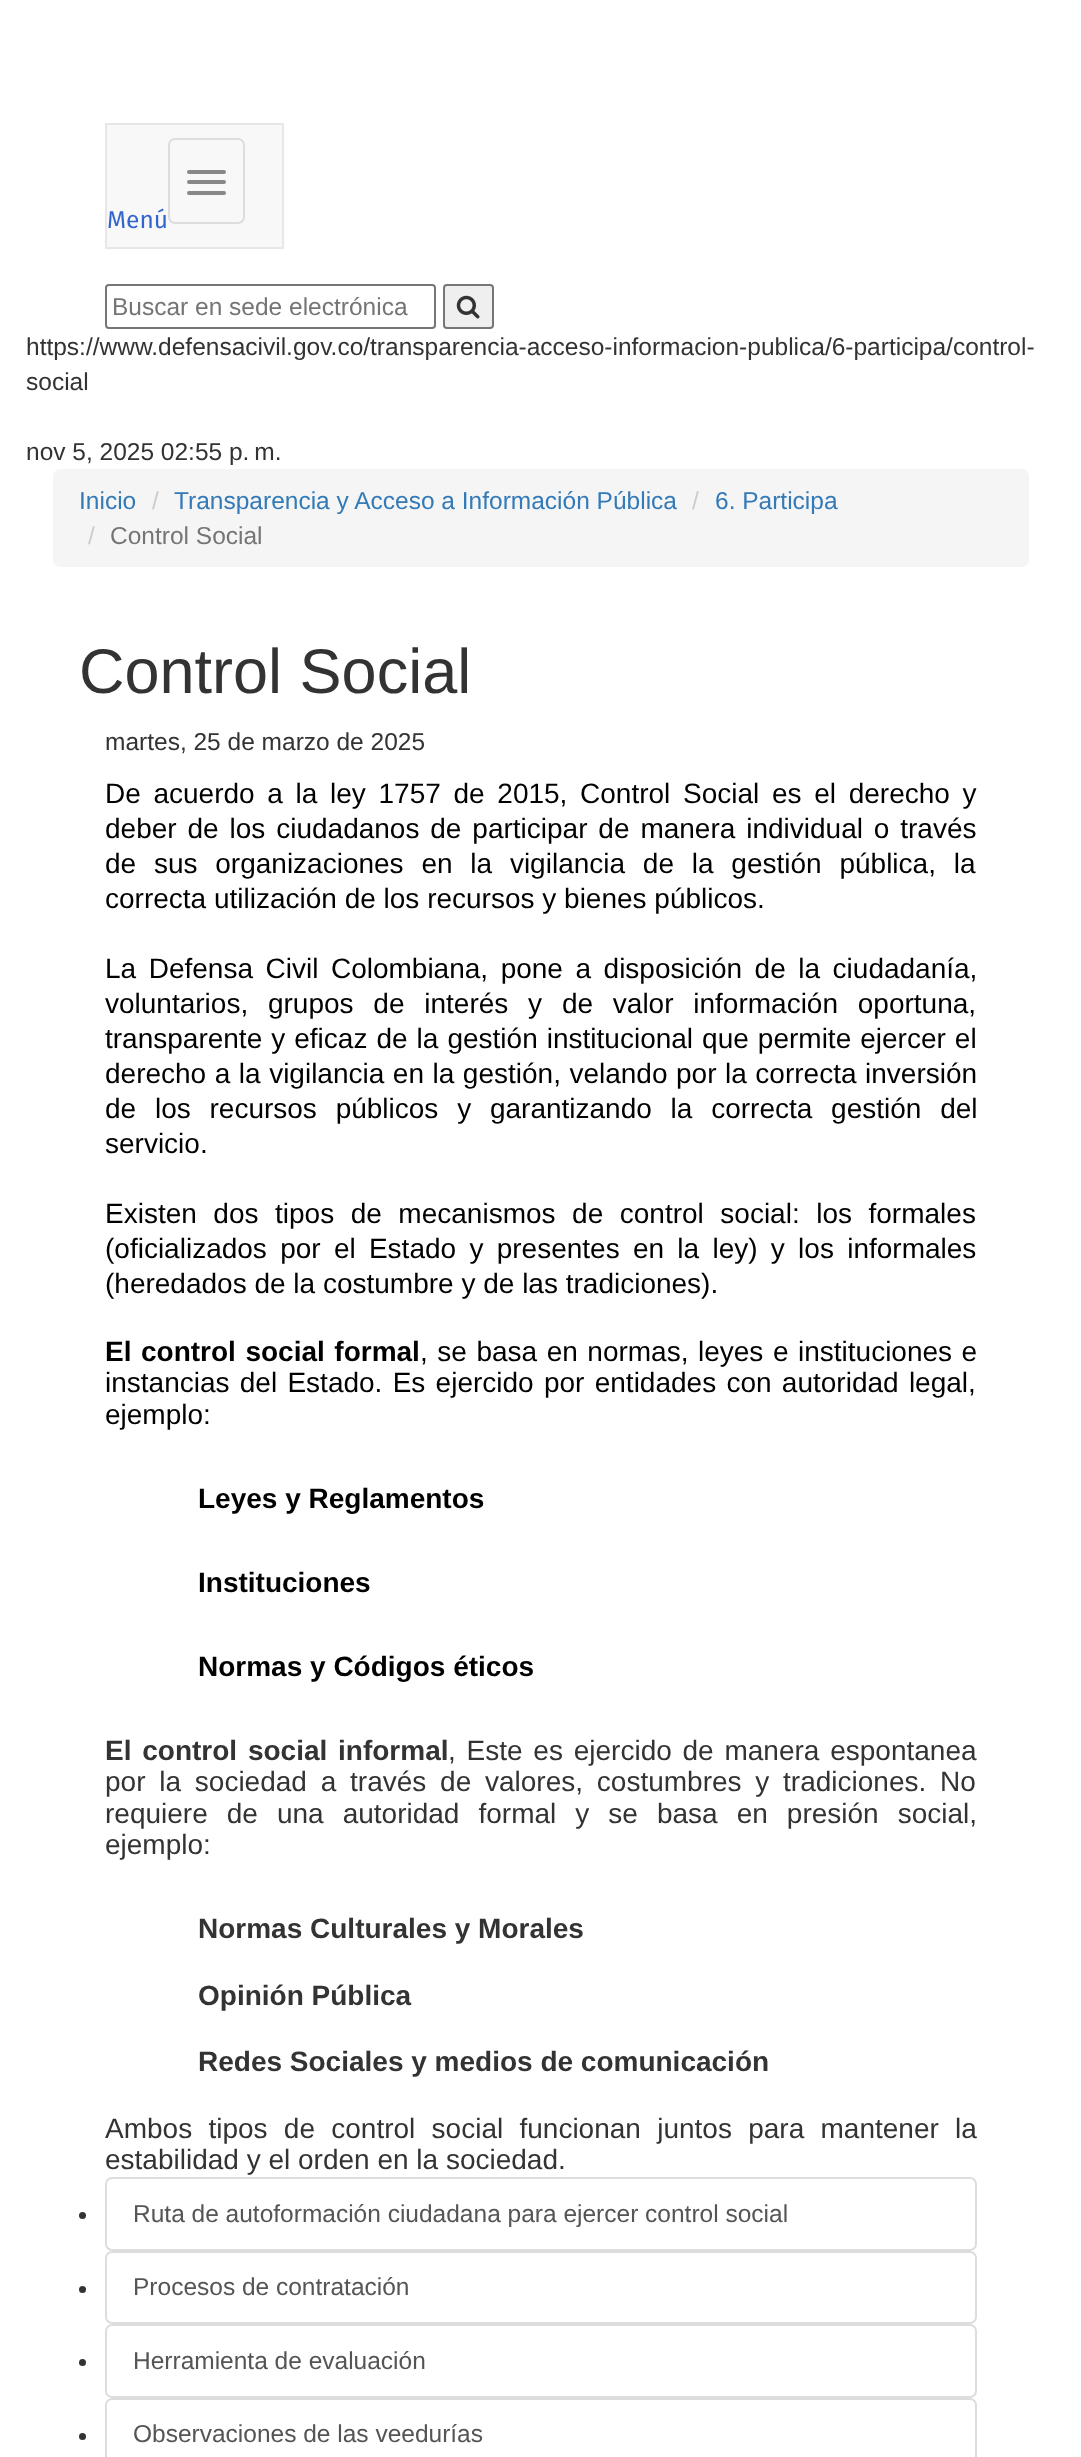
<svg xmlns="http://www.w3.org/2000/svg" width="1081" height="2457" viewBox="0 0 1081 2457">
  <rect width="100%" height="100%" fill="#fff"/>
  <path d="M106 124h177v124H106z" fill="#f8f8f8" stroke="#e7e7e7" stroke-width="2"/>
  <rect x="169" y="139" width="75" height="84" rx="6" fill="none" stroke="#ddd" stroke-width="2"/>
  <rect x="187" y="170" width="39" height="4" rx="2" fill="#888"/>
  <rect x="187" y="180" width="39" height="4" rx="2" fill="#888"/>
  <rect x="187" y="191" width="39" height="4" rx="2" fill="#888"/>
  <rect x="106" y="285" width="329" height="43" rx="3" fill="none" stroke="#767676" stroke-width="2"/>
  <rect x="444" y="285" width="49" height="43" rx="3" fill="#efefef" stroke="#767676" stroke-width="2"/>
  <image x="456" y="295" width="24" height="24" href="img/1.png"/>
  <rect x="53" y="469" width="976" height="98" rx="7" fill="#f5f5f5"/>
  <circle cx="82.5" cy="2215.5" r="3.5" fill="#333"/>
  <rect x="106" y="2178" width="870" height="72" rx="6" fill="none" stroke="#ddd" stroke-width="2"/>
  <circle cx="82.5" cy="2289.5" r="3.5" fill="#333"/>
  <rect x="106" y="2252" width="870" height="71" rx="6" fill="none" stroke="#ddd" stroke-width="2"/>
  <circle cx="82.5" cy="2362.5" r="3.5" fill="#333"/>
  <rect x="106" y="2325" width="870" height="72" rx="6" fill="none" stroke="#ddd" stroke-width="2"/>
  <circle cx="82.5" cy="2436.5" r="3.5" fill="#333"/>
  <rect x="106" y="2399" width="870" height="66" rx="6" fill="none" stroke="#ddd" stroke-width="2"/>
  <text x="107" y="228" font-family="Fira Sans" font-size="24.5" fill="#36c">Menú</text>
  <text x="112" y="315" font-family="Liberation Sans" font-size="24.5" fill="#757575">Buscar en sede electrónica</text>
  <g font-family="Liberation Sans" font-size="24.5" fill="#333">
    <text x="26" y="355">https://www.defensacivil.gov.co/transparencia-acceso-informacion-publica/6-participa/control-</text>
    <text x="26" y="390">social</text>
    <text x="26" y="460">nov 5, 2025 02:55 p. m.</text>
  </g>
  <text x="79" y="509" font-family="Liberation Sans" font-size="24.5" fill="#337ab7">Inicio</text>
  <text x="152" y="509" font-family="Liberation Sans" font-size="24.5" fill="#ccc">/</text>
  <text x="174" y="509" font-family="Liberation Sans" font-size="24.5" fill="#337ab7">Transparencia y Acceso a Información Pública</text>
  <text x="692" y="509" font-family="Liberation Sans" font-size="24.5" fill="#ccc">/</text>
  <text x="715" y="509" font-family="Liberation Sans" font-size="24.5" fill="#337ab7">6. Participa</text>
  <text x="88" y="544" font-family="Liberation Sans" font-size="24.5" fill="#ccc">/</text>
  <text x="110" y="544" font-family="Liberation Sans" font-size="24.5" fill="#757575">Control Social</text>
  <text x="79" y="693" font-family="Liberation Sans" font-size="63" fill="#333">Control Social</text>
  <text x="105" y="750" font-family="Liberation Sans" font-size="24.5" fill="#333">martes, 25 de marzo de 2025</text>
  <g font-family="Liberation Sans" font-size="28" fill="#000">
    <text x="105" y="803" word-spacing="4.9">De acuerdo a la ley 1757 de 2015, Control Social es el derecho y</text>
    <text x="105" y="838" word-spacing="3.1">deber de los ciudadanos de participar de manera individual o través</text>
    <text x="105" y="873" word-spacing="10">de sus organizaciones en la vigilancia de la gestión pública, la</text>
    <text x="105" y="908">correcta utilización de los recursos y bienes públicos.</text>
    <text x="105" y="978" word-spacing="4.75">La Defensa Civil Colombiana, pone a disposición de la ciudadanía,</text>
    <text x="105" y="1013" word-spacing="12">voluntarios, grupos de interés y de valor información oportuna,</text>
    <text x="105" y="1048" word-spacing="1.25">transparente y eficaz de la gestión institucional que permite ejercer el</text>
    <text x="105" y="1083" word-spacing="0.75">derecho a la vigilancia en la gestión, velando por la correcta inversión</text>
    <text x="105" y="1118" word-spacing="11">de los recursos públicos y garantizando la correcta gestión del</text>
    <text x="105" y="1153">servicio.</text>
    <text x="105" y="1223" word-spacing="8.75">Existen dos tipos de mecanismos de control social: los formales</text>
    <text x="105" y="1258" word-spacing="5.5">(oficializados por el Estado y presentes en la ley) y los informales</text>
    <text x="105" y="1293">(heredados de la costumbre y de las tradiciones).</text>
  </g>
  <text x="105" y="1361" word-spacing="1.75" font-family="Liberation Sans" font-size="28" font-weight="bold" fill="#000">El control social formal</text>
  <g font-family="Liberation Sans" font-size="28" fill="#000">
    <text x="420" y="1361" word-spacing="1.75">, se basa en normas, leyes e instituciones e</text>
    <text x="105" y="1392" word-spacing="2.5">instancias del Estado. Es ejercido por entidades con autoridad legal,</text>
    <text x="105" y="1424">ejemplo:</text>
  </g>
  <g font-family="Liberation Sans" font-size="28" font-weight="bold" fill="#000">
    <text x="198" y="1508">Leyes y Reglamentos</text>
    <text x="198" y="1592">Instituciones</text>
    <text x="198" y="1676">Normas y Códigos éticos</text>
  </g>
  <text x="105" y="1760" word-spacing="3" font-family="Liberation Sans" font-size="28" font-weight="bold" fill="#333">El control social informal</text>
  <g font-family="Liberation Sans" font-size="28" fill="#333">
    <text x="448" y="1760" word-spacing="3">, Este es ejercido de manera espontanea</text>
    <text x="105" y="1791" word-spacing="6">por la sociedad a través de valores, costumbres y tradiciones. No</text>
    <text x="105" y="1823" word-spacing="11.25">requiere de una autoridad formal y se basa en presión social,</text>
    <text x="105" y="1854">ejemplo:</text>
  </g>
  <g font-family="Liberation Sans" font-size="28" font-weight="bold" fill="#333">
    <text x="198" y="1938">Normas Culturales y Morales</text>
    <text x="198" y="2005">Opinión Pública</text>
    <text x="198" y="2071">Redes Sociales y medios de comunicación</text>
  </g>
  <g font-family="Liberation Sans" font-size="28" fill="#333">
    <text x="105" y="2138" word-spacing="8.5">Ambos tipos de control social funcionan juntos para mantener la</text>
    <text x="105" y="2169">estabilidad y el orden en la sociedad.</text>
  </g>
  <g font-family="Liberation Sans" font-size="24.5" fill="#555">
    <text x="133" y="2222">Ruta de autoformación ciudadana para ejercer control social</text>
    <text x="133" y="2295">Procesos de contratación</text>
    <text x="133" y="2369">Herramienta de evaluación</text>
    <text x="133" y="2442">Observaciones de las veedurías</text>
  </g>
</svg>
